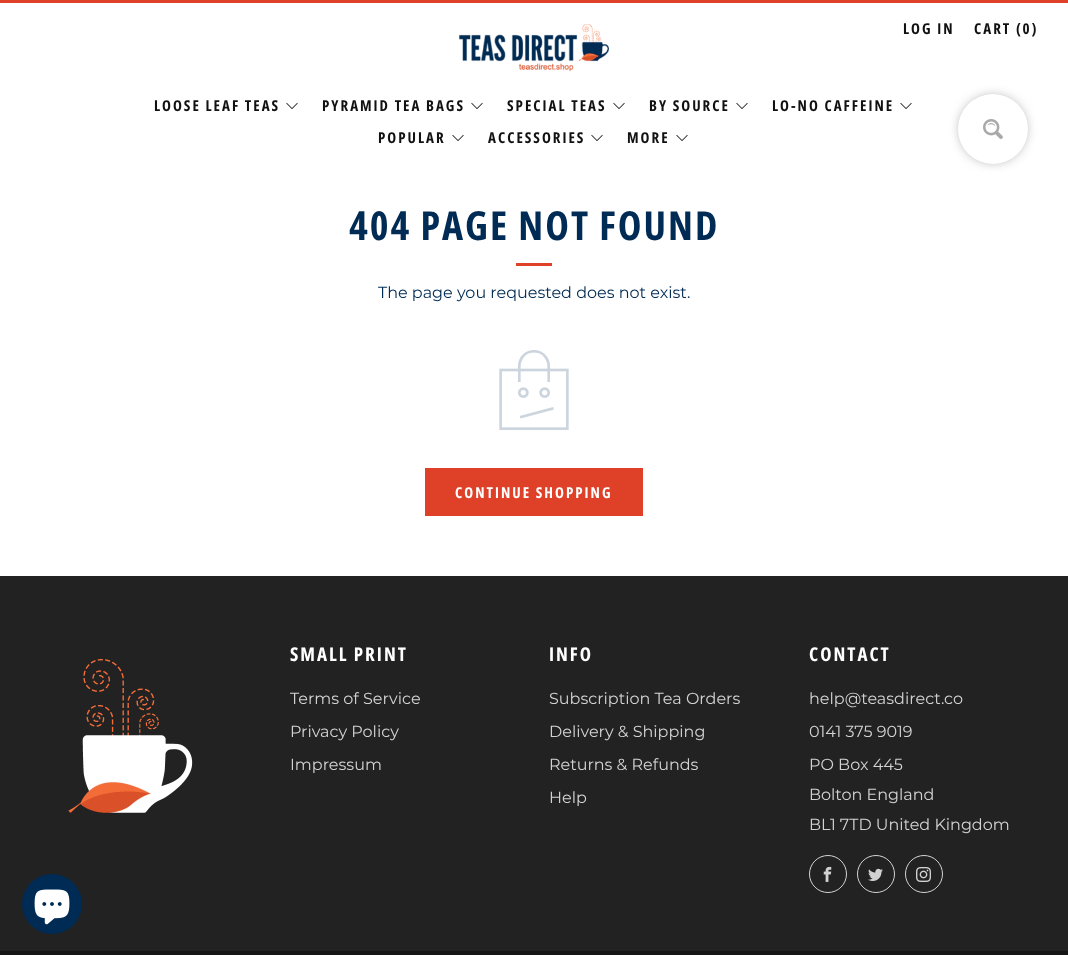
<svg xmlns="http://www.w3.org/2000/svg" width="1068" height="955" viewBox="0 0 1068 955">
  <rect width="100%" height="100%" fill="#fff"/>
  <path d="M0 0h1068v3H0z" fill="#de4127"/>
  <image x="286" y="102" width="12" height="7" href="img/1.png"/>
  <image x="471" y="102" width="12" height="7" href="img/1.png"/>
  <image x="613" y="102" width="12" height="7" href="img/1.png"/>
  <image x="736" y="102" width="12" height="7" href="img/1.png"/>
  <image x="900" y="102" width="12" height="7" href="img/1.png"/>
  <image x="452" y="134" width="12" height="7" href="img/1.png"/>
  <image x="591" y="134" width="12" height="7" href="img/1.png"/>
  <image x="676" y="134" width="12" height="7" href="img/1.png"/>
  <image x="459" y="24" width="150" height="48" href="img/2.png"/>
  <path d="M516 263h36v3H516z" fill="#de4127"/>
  <image x="499" y="350" width="70" height="80" href="img/3.png"/>
  <path d="M425 468h218v48H425z" fill="#de4127"/>
  <path d="M0 576h1068v375H0z" fill="#222"/>
  <image x="68" y="659" width="125" height="154" href="img/4.png"/>
  <circle cx="828" cy="874" r="18.5" fill="none" stroke="#d3d3d3"/>
  <image x="823" y="866" width="9" height="16" href="img/5.png"/>
  <circle cx="876" cy="874" r="18.5" fill="none" stroke="#d3d3d3"/>
  <image x="868" y="868" width="15" height="13" href="img/6.png"/>
  <circle cx="924" cy="874" r="18.5" fill="none" stroke="#d3d3d3"/>
  <image x="916" y="867" width="15" height="15" href="img/7.png"/>
  <path d="M0 951h1068v4H0z" fill="#151515"/>
  <rect x="966" y="102" width="54" height="54" rx="27" fill="#000" filter="blur(7.5px)"/>
  <circle cx="993" cy="129" r="35" fill="#fff"/>
  <image x="983" y="119" width="20" height="20" href="img/8.png"/>
  <circle cx="52" cy="904" r="30" fill="#002b54"/>
  <image x="34" y="889" width="36" height="36" href="img/9.png"/>
  <g font-family="Open Sans Condensed" font-size="15" font-weight="bold" letter-spacing="2" fill="#111">
    <text x="903" y="34">LOG IN</text>
    <text x="974" y="34">CART (0)</text>
    <text x="154" y="111">LOOSE LEAF TEAS</text>
    <text x="322" y="111">PYRAMID TEA BAGS</text>
    <text x="507" y="111">SPECIAL TEAS</text>
    <text x="649" y="111">BY SOURCE</text>
    <text x="772" y="111">LO-NO CAFFEINE</text>
    <text x="378" y="143">POPULAR</text>
    <text x="488" y="143">ACCESSORIES</text>
    <text x="627" y="143">MORE</text>
  </g>
  <text x="349" y="240" font-family="Open Sans Condensed" font-size="40" font-weight="bold" letter-spacing="2" fill="#002b54">404 PAGE NOT FOUND</text>
  <text x="378" y="298" font-family="Montserrat" font-size="16" fill="#002b54">The page you requested does not exist.</text>
  <text x="455" y="498" font-family="Open Sans Condensed" font-size="15" font-weight="bold" letter-spacing="2" fill="#fff">CONTINUE SHOPPING</text>
  <text x="290" y="661" font-family="Open Sans Condensed" font-size="19" font-weight="bold" letter-spacing="2" fill="#fff">SMALL PRINT</text>
  <g font-family="Montserrat" font-size="16" fill="#d3d3d3">
    <text x="290" y="704">Terms of Service</text>
    <text x="290" y="737">Privacy Policy</text>
    <text x="290" y="770">Impressum</text>
  </g>
  <text x="549" y="661" font-family="Open Sans Condensed" font-size="19" font-weight="bold" letter-spacing="2" fill="#fff">INFO</text>
  <g font-family="Montserrat" font-size="16" fill="#d3d3d3">
    <text x="549" y="704">Subscription Tea Orders</text>
    <text x="549" y="737">Delivery &amp; Shipping</text>
    <text x="549" y="770">Returns &amp; Refunds</text>
    <text x="549" y="803">Help</text>
  </g>
  <text x="809" y="661" font-family="Open Sans Condensed" font-size="19" font-weight="bold" letter-spacing="2" fill="#fff">CONTACT</text>
  <g font-family="Montserrat" font-size="16" fill="#d3d3d3">
    <text x="809" y="704">help@teasdirect.co</text>
    <text x="809" y="737">0141 375 9019</text>
    <text x="809" y="770">PO Box 445</text>
    <text x="809" y="800">Bolton England</text>
    <text x="809" y="830">BL1 7TD United Kingdom</text>
  </g>
</svg>
